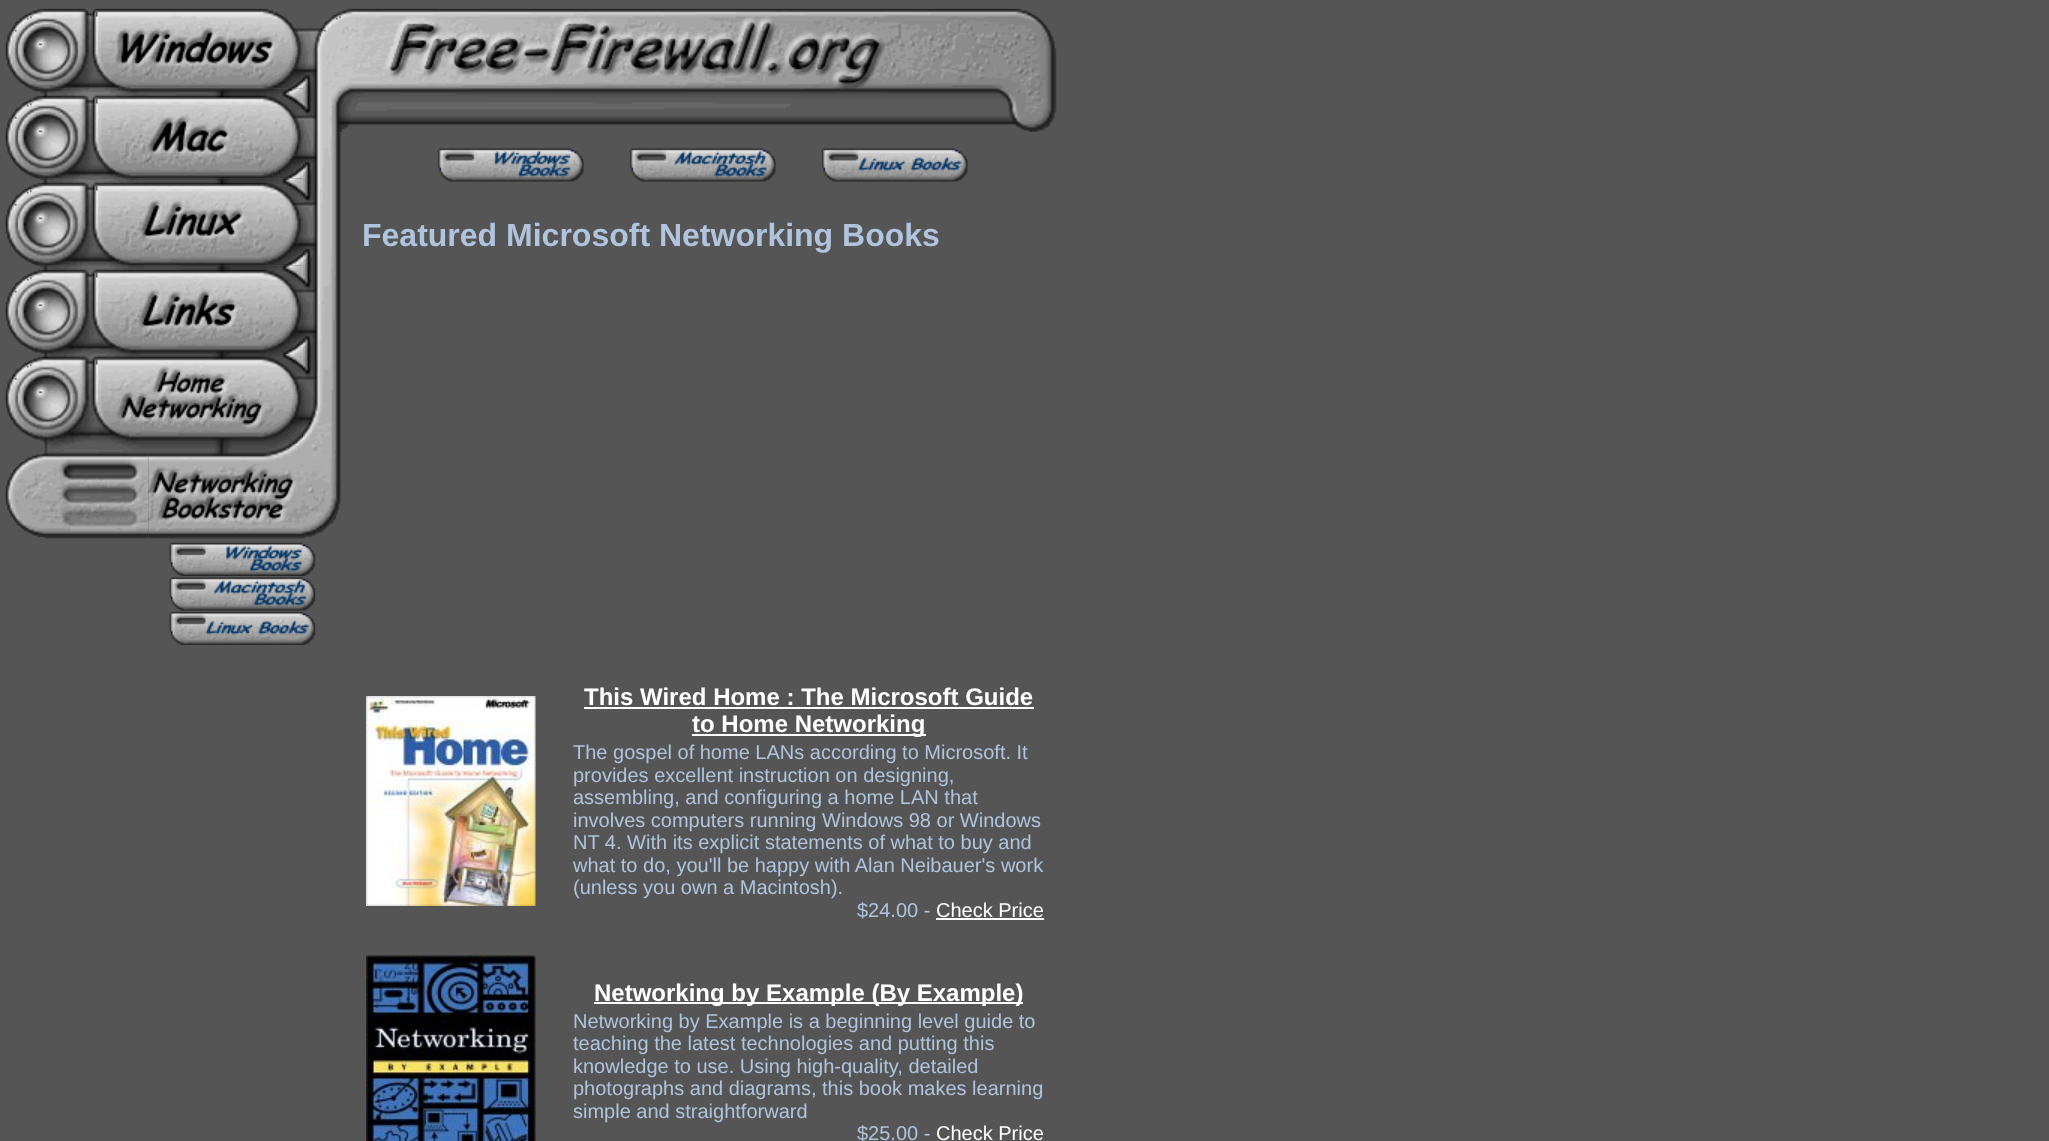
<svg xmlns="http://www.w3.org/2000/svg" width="2049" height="1141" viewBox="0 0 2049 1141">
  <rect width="100%" height="100%" fill="#555"/>
  <image x="5" y="8" width="85" height="81" href="img/1.png"/>
  <image x="90" y="8" width="213" height="81" href="img/2.png"/>
  <image x="303" y="8" width="754" height="124" href="img/3.png"/>
  <image x="5" y="88" width="85" height="91" href="img/4.png"/>
  <image x="90" y="88" width="213" height="91" href="img/5.png"/>
  <image x="5" y="178" width="85" height="88" href="img/6.png"/>
  <image x="90" y="178" width="213" height="88" href="img/7.png"/>
  <image x="303" y="132" width="38" height="407" href="img/8.png"/>
  <image x="437" y="148" width="147" height="34" href="img/9.png"/>
  <image x="629" y="148" width="147" height="34" href="img/10.png"/>
  <image x="821" y="148" width="147" height="34" href="img/11.png"/>
  <image x="366" y="696" width="170" height="210" href="img/12.png"/>
  <path d="M584 707h450v2H584z" fill="#fff"/>
  <path d="M692 734h234v2H692z" fill="#fff"/>
  <path d="M936 918h108v2H936z" fill="#fff"/>
  <image x="366" y="955" width="170" height="186" href="img/13.png"/>
  <path d="M594 1002h429v2H594z" fill="#fff"/>
  <image x="5" y="265" width="85" height="89" href="img/14.png"/>
  <image x="90" y="265" width="213" height="89" href="img/15.png"/>
  <image x="5" y="354" width="85" height="90" href="img/16.png"/>
  <image x="90" y="354" width="213" height="90" href="img/17.png"/>
  <image x="5" y="444" width="144" height="95" href="img/18.png"/>
  <image x="148" y="444" width="155" height="95" href="img/19.png"/>
  <image x="169" y="542" width="147" height="34" href="img/20.png"/>
  <image x="169" y="577" width="147" height="34" href="img/21.png"/>
  <image x="169" y="611" width="147" height="34" href="img/22.png"/>
  <text x="362" y="246" font-family="Liberation Sans" font-size="32" font-weight="bold" fill="#b0c4de">Featured Microsoft Networking Books</text>
  <g font-family="Liberation Sans" font-size="24" font-weight="bold" fill="#fff">
    <text x="584" y="705">This Wired Home : The Microsoft Guide</text>
    <text x="692" y="732">to Home Networking</text>
  </g>
  <g font-family="Liberation Sans" font-size="20" fill="#b0c4de">
    <text x="573" y="759">The gospel of home LANs according to Microsoft. It</text>
    <text x="573" y="782">provides excellent instruction on designing,</text>
    <text x="573" y="804">assembling, and configuring a home LAN that</text>
    <text x="573" y="827">involves computers running Windows 98 or Windows</text>
    <text x="573" y="849">NT 4. With its explicit statements of what to buy and</text>
    <text x="573" y="872">what to do, you'll be happy with Alan Neibauer's work</text>
    <text x="573" y="894">(unless you own a Macintosh).</text>
    <text x="857" y="917">$24.00 -</text>
  </g>
  <text x="936" y="917" font-family="Liberation Sans" font-size="20" fill="#fff">Check Price</text>
  <text x="594" y="1001" font-family="Liberation Sans" font-size="24" font-weight="bold" fill="#fff">Networking by Example (By Example)</text>
  <g font-family="Liberation Sans" font-size="20" fill="#b0c4de">
    <text x="573" y="1028">Networking by Example is a beginning level guide to</text>
    <text x="573" y="1050">teaching the latest technologies and putting this</text>
    <text x="573" y="1073">knowledge to use. Using high-quality, detailed</text>
    <text x="573" y="1095">photographs and diagrams, this book makes learning</text>
    <text x="573" y="1118">simple and straightforward</text>
    <text x="857" y="1140">$25.00 -</text>
  </g>
  <text x="936" y="1140" font-family="Liberation Sans" font-size="20" fill="#fff">Check Price</text>
</svg>
